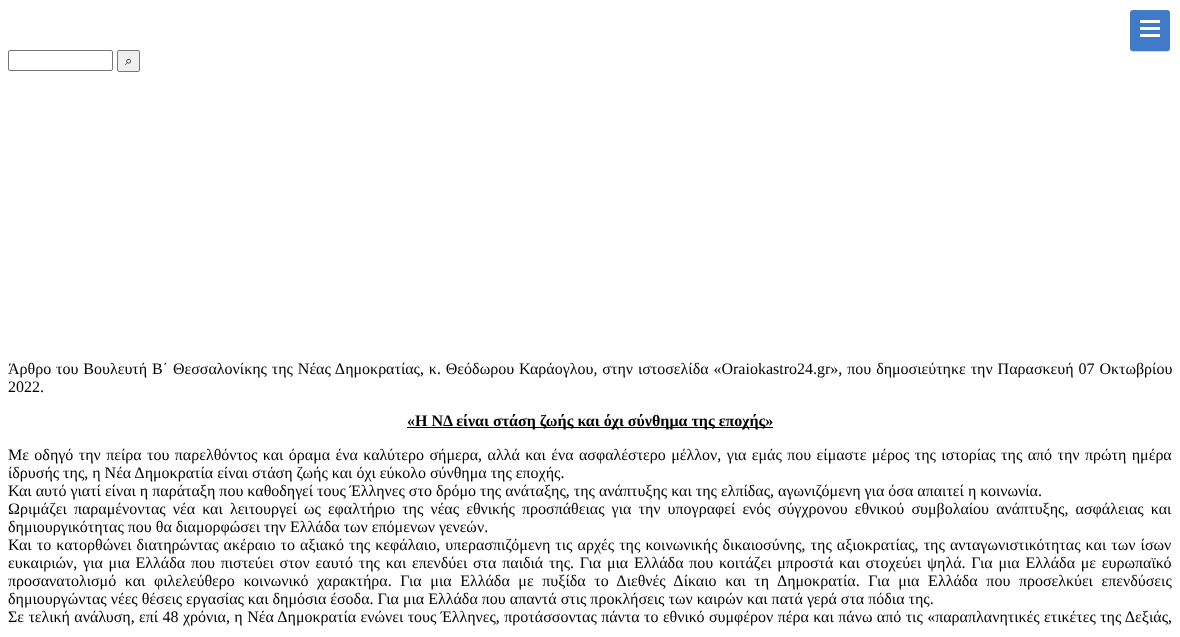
<svg xmlns="http://www.w3.org/2000/svg" width="1180" height="637" viewBox="0 0 1180 637">
  <rect width="100%" height="100%" fill="#fff"/>
  <rect x="1130" y="11" width="40" height="41" rx="3" fill="#00000026" filter="blur(0.5px)"/>
  <rect x="1130" y="10" width="40" height="41" rx="3" fill="#417ac7"/>
  <path d="M1140 20h20v3H1140z" fill="#fff"/>
  <path d="M1140 27h20v3H1140z" fill="#fff"/>
  <path d="M1140 34h20v3H1140z" fill="#fff"/>
  <rect x="8.5" y="50.5" width="104" height="20" rx="1.5" fill="none" stroke="#767676"/>
  <rect x="117.5" y="50.5" width="22" height="21" rx="1.5" fill="#efefef" stroke="#767676"/>
  <path d="M407 427h366v1H407z" fill="#000"/>
  <text x="125" y="65" font-family="FreeSerif" font-size="13" fill="#000">⌕</text>
  <g font-family="Liberation Serif" font-size="16" fill="#000">
    <text x="8" y="374" word-spacing="0.9">Άρθρο του Βουλευτή Β΄ Θεσσαλονίκης της Νέας Δημοκρατίας, κ. Θεόδωρου Καράογλου, στην ιστοσελίδα «Oraiokastro24.gr», που δημοσιεύτηκε την Παρασκευή 07 Οκτωβρίου</text>
    <text x="8" y="392">2022.</text>
  </g>
  <text x="407" y="426" font-family="Liberation Serif" font-size="16" font-weight="bold" fill="#000">«Η ΝΔ είναι στάση ζωής και όχι σύνθημα της εποχής»</text>
  <g font-family="Liberation Serif" font-size="16" fill="#000">
    <text x="8" y="460" word-spacing="1.4">Με οδηγό την πείρα του παρελθόντος και όραμα ένα καλύτερο σήμερα, αλλά και ένα ασφαλέστερο μέλλον, για εμάς που είμαστε μέρος της ιστορίας της από την πρώτη ημέρα</text>
    <text x="8" y="478">ίδρυσής της, η Νέα Δημοκρατία είναι στάση ζωής και όχι εύκολο σύνθημα της εποχής.</text>
    <text x="8" y="496">Και αυτό γιατί είναι η παράταξη που καθοδηγεί τους Έλληνες στο δρόμο της ανάταξης, της ανάπτυξης και της ελπίδας, αγωνιζόμενη για όσα απαιτεί η κοινωνία.</text>
    <text x="8" y="514" word-spacing="3.1">Ωριμάζει παραμένοντας νέα και λειτουργεί ως εφαλτήριο της νέας εθνικής προσπάθειας για την υπογραφεί ενός σύγχρονου εθνικού συμβολαίου ανάπτυξης, ασφάλειας και</text>
    <text x="8" y="532">δημιουργικότητας που θα διαμορφώσει την Ελλάδα των επόμενων γενεών.</text>
    <text x="8" y="550" word-spacing="1.1">Και το κατορθώνει διατηρώντας ακέραιο το αξιακό της κεφάλαιο, υπερασπιζόμενη τις αρχές της κοινωνικής δικαιοσύνης, της αξιοκρατίας, της ανταγωνιστικότητας και των ίσων</text>
    <text x="8" y="568" word-spacing="1.75">ευκαιριών, για μια Ελλάδα που πιστεύει στον εαυτό της και επενδύει στα παιδιά της. Για μια Ελλάδα που κοιτάζει μπροστά και στοχεύει ψηλά. Για μια Ελλάδα με ευρωπαϊκό</text>
    <text x="8" y="586" word-spacing="4.6">προσανατολισμό και φιλελεύθερο κοινωνικό χαρακτήρα. Για μια Ελλάδα με πυξίδα το Διεθνές Δίκαιο και τη Δημοκρατία. Για μια Ελλάδα που προσελκύει επενδύσεις</text>
    <text x="8" y="604">δημιουργώντας νέες θέσεις εργασίας και δημόσια έσοδα. Για μια Ελλάδα που απαντά στις προκλήσεις των καιρών και πατά γερά στα πόδια της.</text>
    <text x="8" y="622" word-spacing="0.4">Σε τελική ανάλυση, επί 48 χρόνια, η Νέα Δημοκρατία ενώνει τους Έλληνες, προτάσσοντας πάντα το εθνικό συμφέρον πέρα και πάνω από τις «παραπλανητικές ετικέτες της Δεξιάς,</text>
  </g>
</svg>
